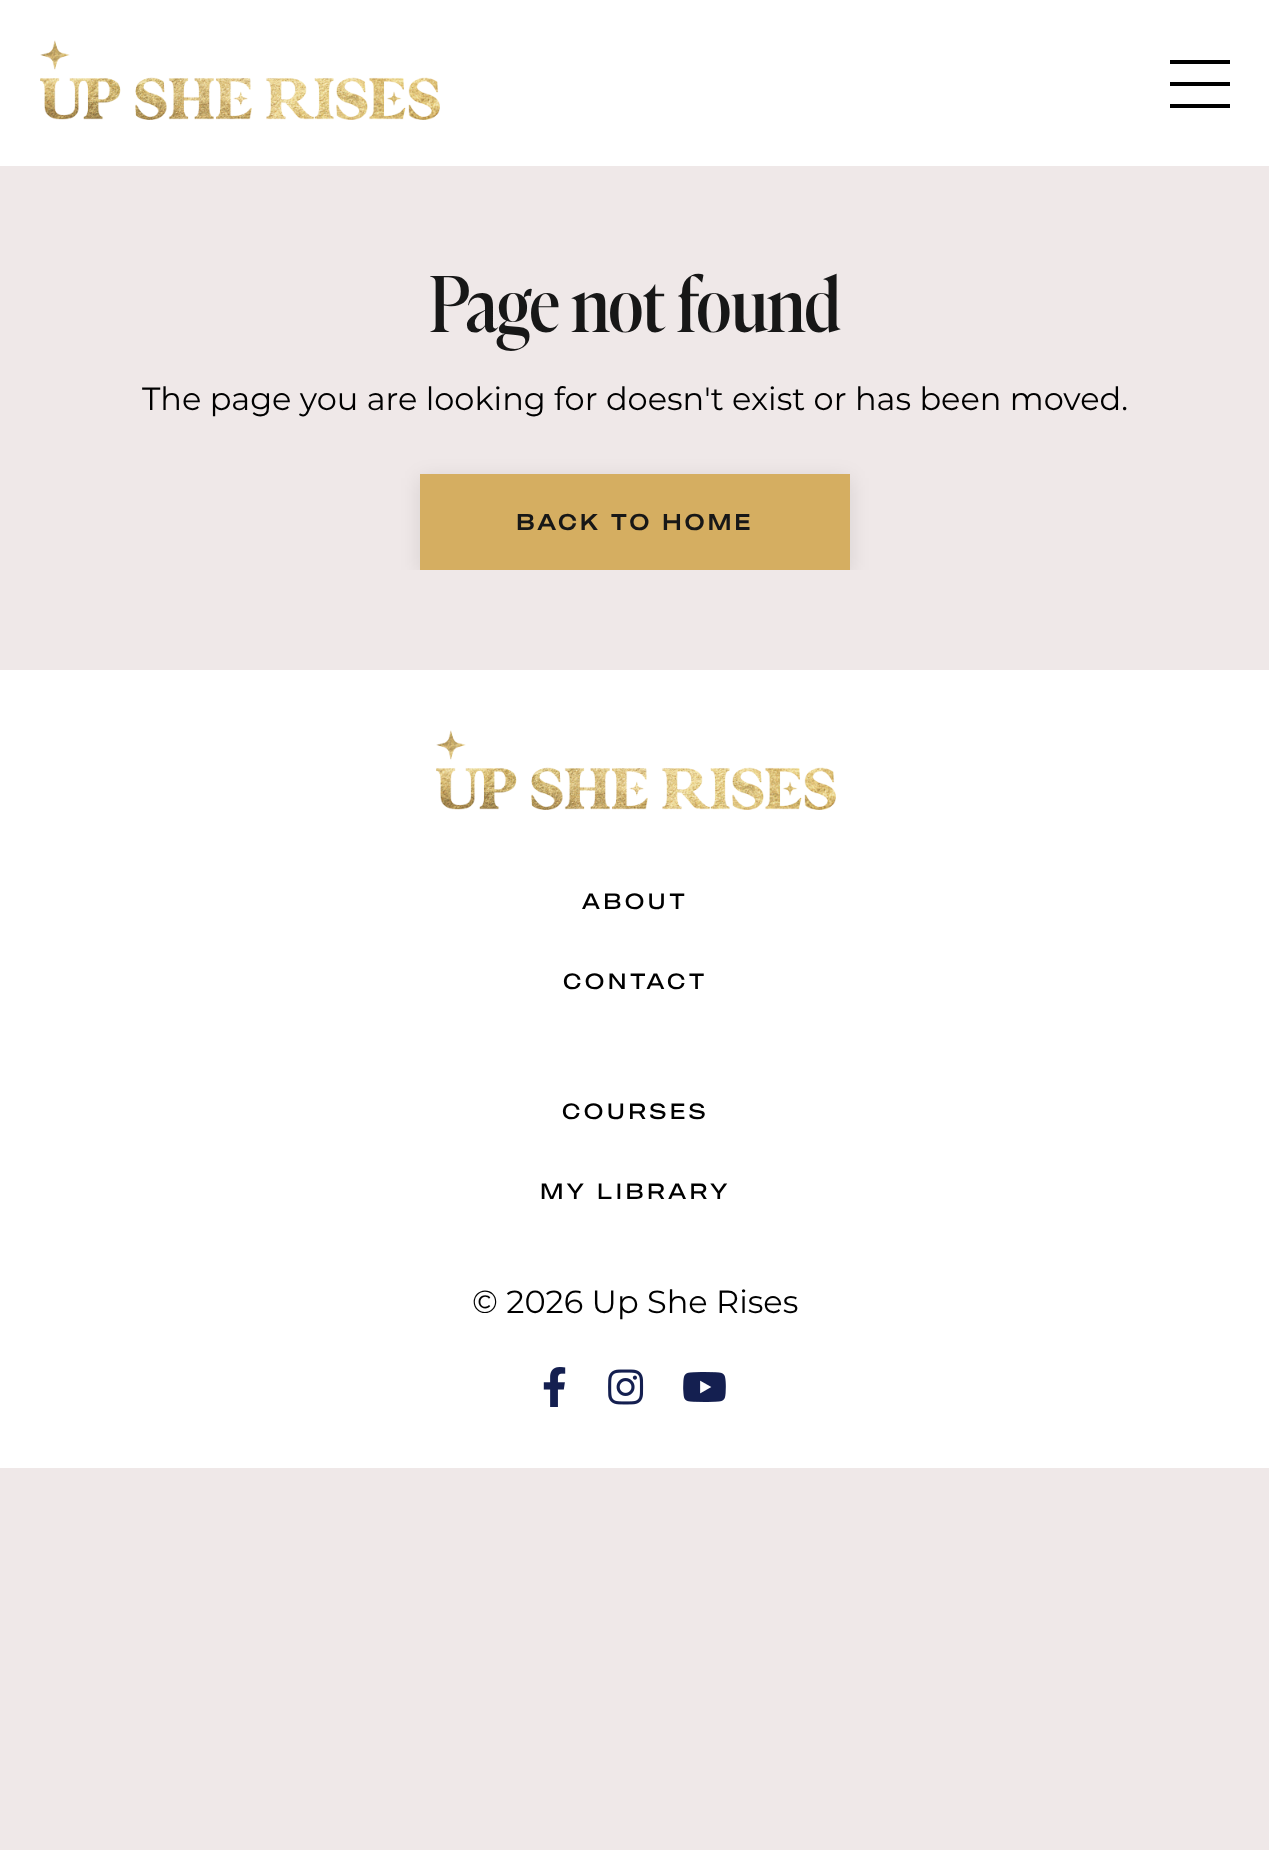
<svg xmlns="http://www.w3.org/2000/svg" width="1269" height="1850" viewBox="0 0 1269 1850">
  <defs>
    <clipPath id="clip1"><rect x="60" y="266" width="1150" height="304" rx="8"/></clipPath>
  </defs>
  <rect width="100%" height="100%" fill="#efe8e8"/>
  <path d="M0 0h1269v166H0z" fill="#fff"/>
  <image x="40" y="40" width="400" height="80" href="img/1.png"/>
  <path d="M1170 60h60v4H1170z" fill="#000"/>
  <path d="M1170 82h60v4H1170z" fill="#000"/>
  <path d="M1170 104h60v4H1170z" fill="#000"/>
  <g clip-path="url(#clip1)">
    <path d="M420 478h430v96H420z" fill="#0000001a" filter="blur(10px)"/>
  </g>
  <path d="M420 474h430v96H420z" fill="#d5ae61"/>
  <path d="M0 670h1269v798H0z" fill="#fff"/>
  <image x="436" y="730" width="400" height="80" href="img/1.png"/>
  <image x="543" y="1367" width="23" height="40" href="img/2.png"/>
  <image x="608" y="1369" width="36" height="36" href="img/3.png"/>
  <image x="683" y="1372" width="43" height="30" href="img/4.png"/>
  <text x="430" y="332" font-family="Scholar" font-size="84" fill="#171717">Page not found</text>
  <text x="142" y="410" font-family="Montserrat" font-size="32" fill="#000">The page you are looking for doesn't exist or has been moved.</text>
  <text x="516" y="530" font-family="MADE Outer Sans" font-size="22" font-weight="bold" letter-spacing="3.4" fill="#171717">BACK TO HOME</text>
  <g font-family="MADE Outer Sans" font-size="22" font-weight="300" letter-spacing="3.4" fill="#000">
    <text x="582" y="909">ABOUT</text>
    <text x="563" y="989">CONTACT</text>
    <text x="562" y="1119">COURSES</text>
    <text x="540" y="1199">MY LIBRARY</text>
  </g>
  <text x="472" y="1313" font-family="Montserrat" font-size="32" fill="#000">© 2026 Up She Rises</text>
</svg>
